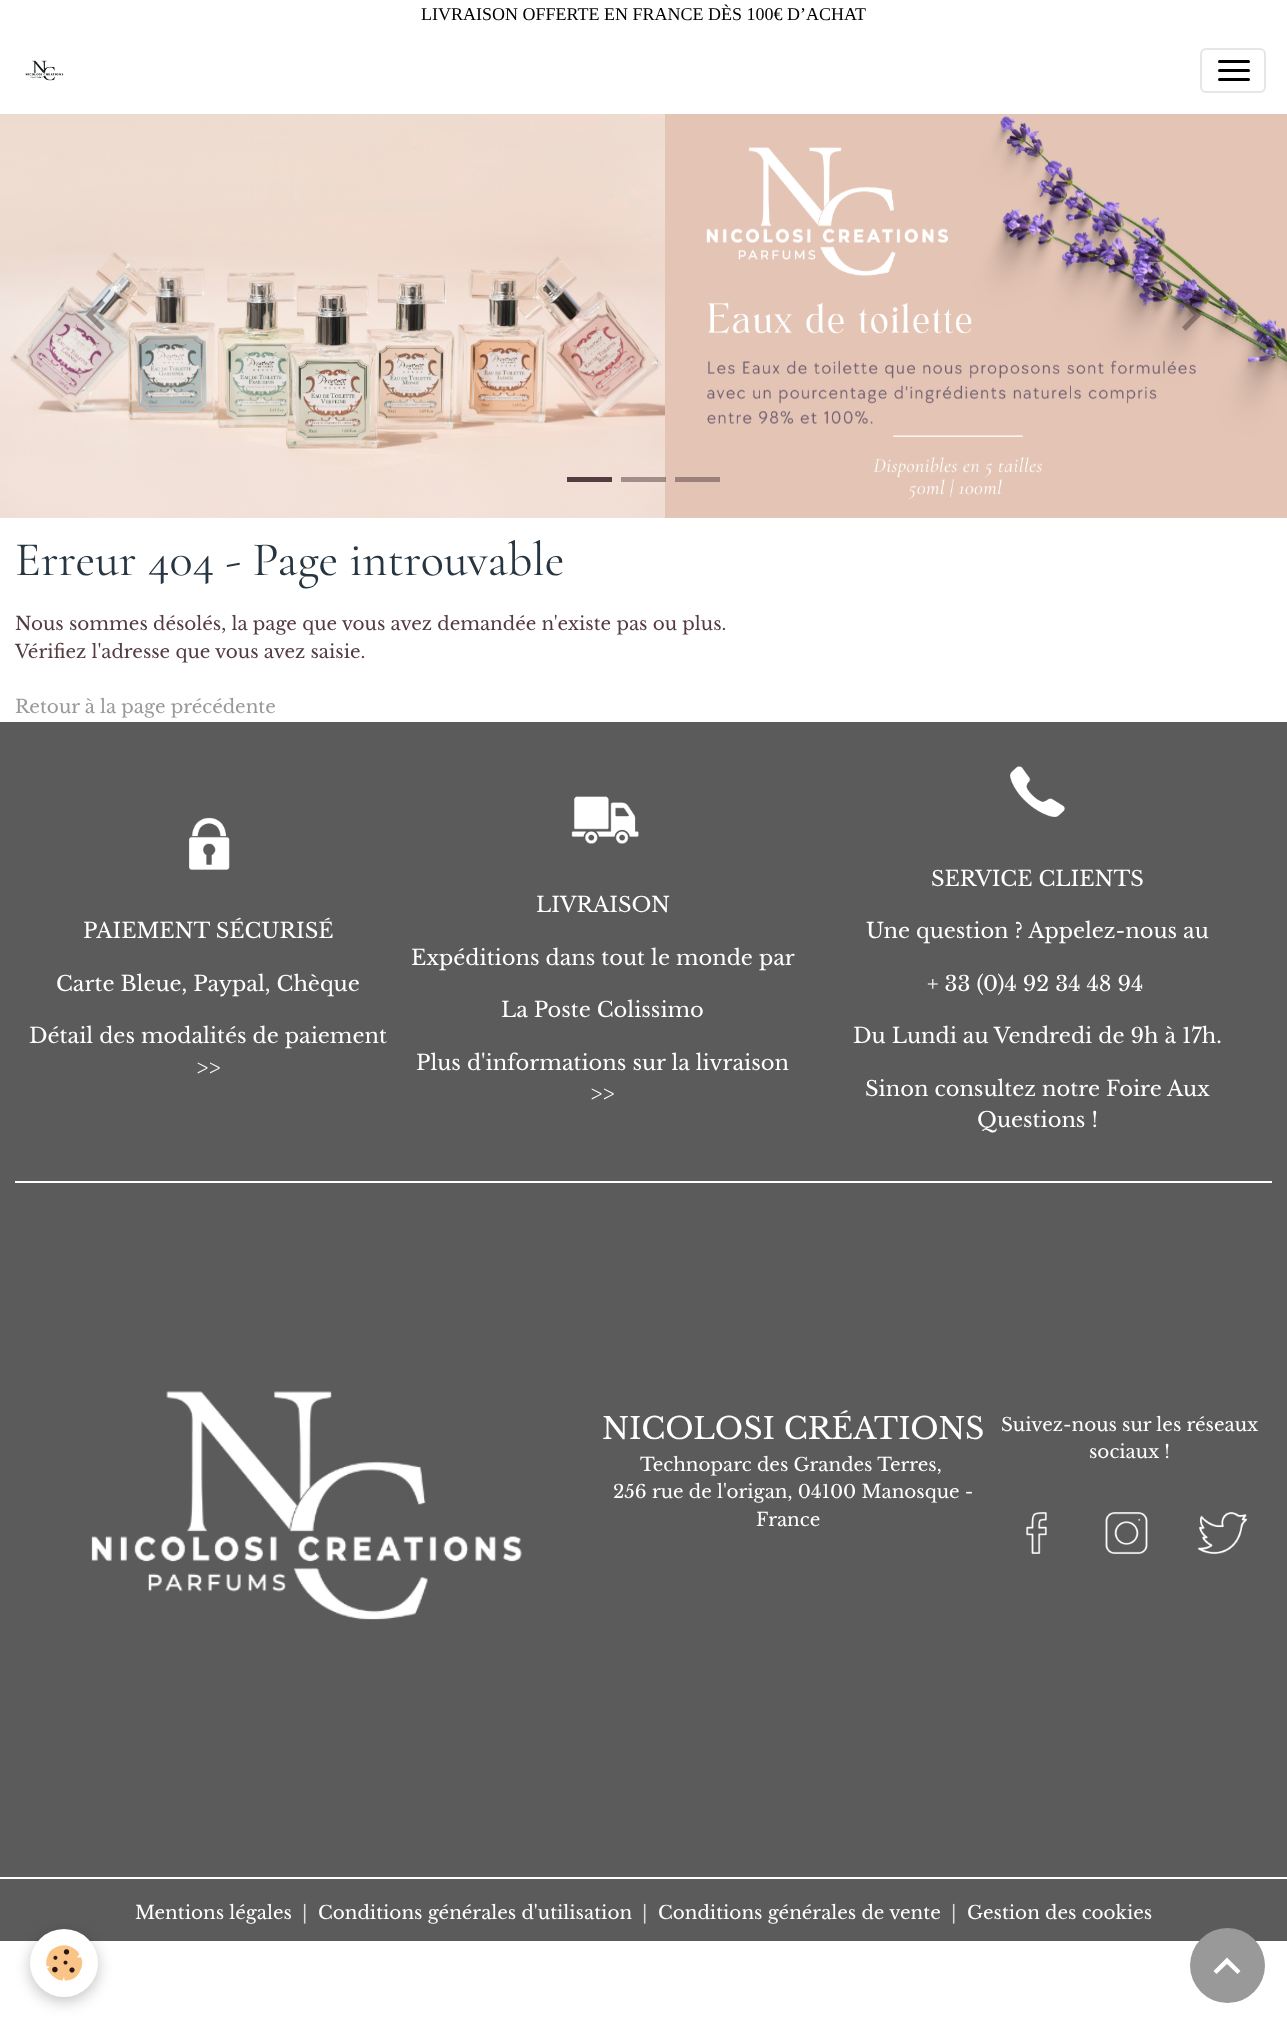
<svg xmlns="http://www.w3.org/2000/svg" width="1287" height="2024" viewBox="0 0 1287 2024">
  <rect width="100%" height="100%" fill="#fff"/>
  <image x="25" y="60" width="39" height="21" href="img/1.png"/>
  <rect x="1201" y="49" width="64" height="43" rx="5" fill="none" stroke="#e6e6e6" stroke-width="2"/>
  <rect x="1218" y="60" width="32" height="3" rx="1.5" fill="#000"/>
  <rect x="1218" y="69" width="32" height="3" rx="1.5" fill="#000"/>
  <rect x="1218" y="78" width="32" height="3" rx="1.5" fill="#000"/>
  <image x="0" y="114" width="1287" height="404" href="img/2.png"/>
  <path d="M105 303L93 315L105 327L101.5 331L85.5 315L101.5 299Z" fill="#543b4080"/>
  <path d="M1185.5 299L1201.5 315L1185.5 331L1182 327L1194 315L1182 303Z" fill="#543b4080"/>
  <path d="M567 477h45v5H567z" fill="#543b40"/>
  <path d="M621 477h45v5H621z" fill="#543b4080"/>
  <path d="M675 477h45v5H675z" fill="#9c807b"/>
  <path d="M0 722h1287v1219H0z" fill="#5b5b5b"/>
  <image x="189" y="817" width="41" height="53" href="img/3.png"/>
  <image x="571" y="796" width="68" height="48" href="img/4.png"/>
  <image x="1010" y="766" width="55" height="51" href="img/5.png"/>
  <path d="M15 1181h1257v2H15z" fill="#fff"/>
  <image x="91" y="1391" width="431" height="229" href="img/6.png"/>
  <image x="1026" y="1512" width="21" height="42" href="img/7.png"/>
  <image x="1105" y="1512" width="43" height="42" href="img/8.png"/>
  <image x="1197" y="1512" width="51" height="42" href="img/9.png"/>
  <path d="M0 1877h1287v2H0z" fill="#fff"/>
  <rect x="30" y="1934" width="68" height="67" rx="33.5" fill="#0000003d" filter="blur(7.5px)"/>
  <circle cx="64" cy="1963" r="34" fill="#fff"/>
  <image x="46" y="1945" width="37" height="36" href="img/10.png"/>
  <circle cx="1227.5" cy="1965.5" r="37.5" fill="#999"/>
  <path d="M1227 1957.5L1240.5 1971L1237.5 1974L1227 1964L1216.5 1974L1213.5 1971Z" fill="#fff"/>
  <text x="421" y="20" font-family="Liberation Serif" font-size="18" fill="#000">LIVRAISON OFFERTE EN FRANCE DÈS 100€ D’ACHAT</text>
  <text x="15" y="575" font-family="Cormorant Garamond" font-size="48.25" fill="#273540">Erreur 404 - Page introuvable</text>
  <g font-family="Libre Baskerville" font-size="18.4" fill="#543b40">
    <text x="15" y="630">Nous sommes désolés, la page que vous avez demandée n'existe pas ou plus.</text>
    <text x="15" y="658">Vérifiez l'adresse que vous avez saisie.</text>
  </g>
  <text x="15" y="713" font-family="Libre Baskerville" font-size="18.4" fill="#999">Retour à la page précédente</text>
  <g font-family="Libre Baskerville" font-size="21" fill="#fff">
    <text x="83" y="938">PAIEMENT SÉCURISÉ</text>
    <text x="56" y="991">Carte Bleue, Paypal, Chèque</text>
    <text x="29" y="1043">Détail des modalités de paiement</text>
    <text x="196" y="1075">&gt;&gt;</text>
    <text x="536" y="912">LIVRAISON</text>
    <text x="411" y="965">Expéditions dans tout le monde par</text>
    <text x="501" y="1017">La Poste Colissimo</text>
    <text x="416" y="1070">Plus d'informations sur la livraison</text>
    <text x="590" y="1101">&gt;&gt;</text>
    <text x="931" y="886">SERVICE CLIENTS</text>
    <text x="866" y="938">Une question ? Appelez-nous au</text>
    <text x="927" y="991">+ 33 (0)4 92 34 48 94</text>
    <text x="853" y="1043">Du Lundi au Vendredi de 9h à 17h.</text>
    <text x="865" y="1096">Sinon consultez notre Foire Aux</text>
    <text x="977" y="1127">Questions !</text>
  </g>
  <text x="602" y="1439" font-family="Libre Baskerville" font-size="30" fill="#fff">NICOLOSI CRÉATIONS</text>
  <g font-family="Libre Baskerville" font-size="18.4" fill="#fff">
    <text x="640" y="1471">Technoparc des Grandes Terres,</text>
    <text x="613" y="1498">256 rue de l'origan, 04100 Manosque -</text>
    <text x="756" y="1526">France</text>
    <text x="1001" y="1431">Suivez-nous sur les réseaux</text>
    <text x="1089" y="1458">sociaux !</text>
    <text x="135" y="1919">Mentions légales</text>
  </g>
  <text x="302" y="1919" font-family="Libre Baskerville" font-size="18.4" fill="#dedede">|</text>
  <text x="318" y="1919" font-family="Libre Baskerville" font-size="18.4" fill="#fff">Conditions générales d'utilisation</text>
  <text x="642" y="1919" font-family="Libre Baskerville" font-size="18.4" fill="#dedede">|</text>
  <text x="658" y="1919" font-family="Libre Baskerville" font-size="18.4" fill="#fff">Conditions générales de vente</text>
  <text x="951" y="1919" font-family="Libre Baskerville" font-size="18.4" fill="#dedede">|</text>
  <text x="967" y="1919" font-family="Libre Baskerville" font-size="18.4" fill="#fff">Gestion des cookies</text>
</svg>
